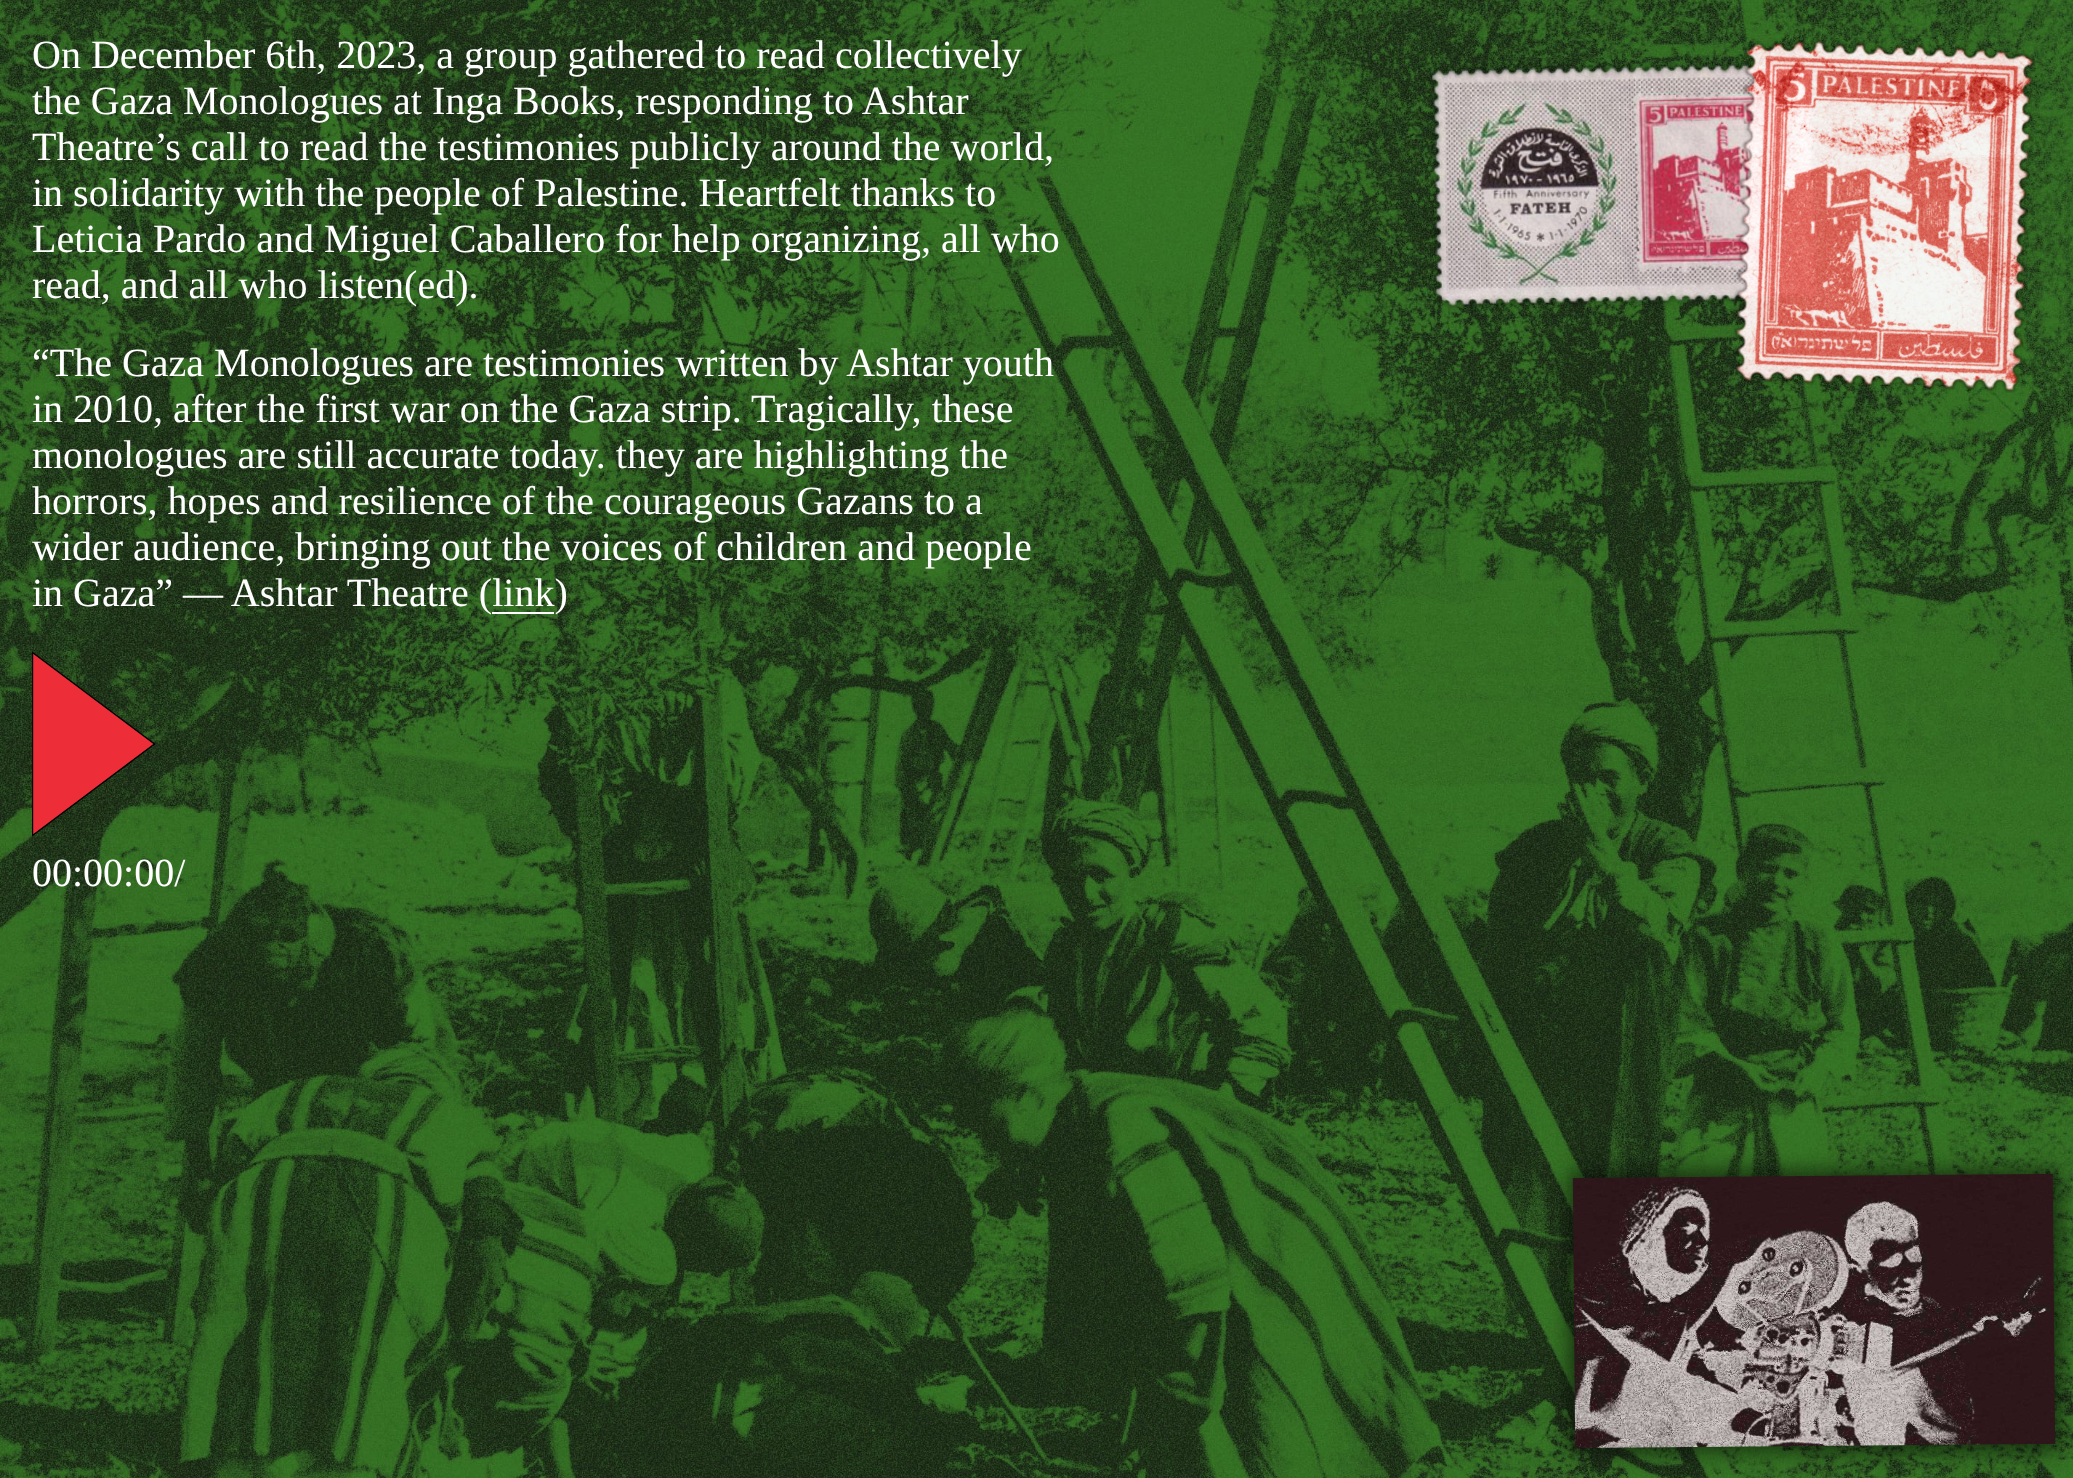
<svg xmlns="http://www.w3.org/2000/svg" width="2073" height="1478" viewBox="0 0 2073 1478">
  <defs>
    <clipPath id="clip1"><path d="M32 648h128v192H32z"/></clipPath>
  </defs>
  <rect width="100%" height="100%" fill="#fff"/>
  <image x="0" y="0" width="2073" height="1478" href="img/1.png"/>
  <path d="M492 612h62v2H492z" fill="#fff"/>
  <path d="M33 653L154 744L33 835Z" fill="#ed2e38"/>
  <g clip-path="url(#clip1)">
    <path d="M32.5 652.5L154.5 744L32.5 835.5Z" fill="none" stroke="#000" stroke-width="1.4"/>
  </g>
  <image x="1428" y="60" width="394" height="250" href="img/2.png"/>
  <image x="1733" y="39" width="303" height="354" href="img/3.png"/>
  <path d="M1568 1170h492v282H1568z" fill="#0000008a" filter="blur(10px)"/>
  <image x="1572" y="1174" width="484" height="274" href="img/4.png"/>
  <g font-family="Liberation Serif" font-size="40" fill="#fff">
    <text x="32" y="68">On December 6th, 2023, a group gathered to read collectively</text>
    <text x="32" y="114">the Gaza Monologues at Inga Books, responding to Ashtar</text>
    <text x="32" y="160">Theatre’s call to read the testimonies publicly around the world,</text>
    <text x="32" y="206">in solidarity with the people of Palestine. Heartfelt thanks to</text>
    <text x="32" y="252">Leticia Pardo and Miguel Caballero for help organizing, all who</text>
    <text x="32" y="298">read, and all who listen(ed).</text>
    <text x="32" y="376">“The Gaza Monologues are testimonies written by Ashtar youth</text>
    <text x="32" y="422">in 2010, after the first war on the Gaza strip. Tragically, these</text>
    <text x="32" y="468">monologues are still accurate today. they are highlighting the</text>
    <text x="32" y="514">horrors, hopes and resilience of the courageous Gazans to a</text>
    <text x="32" y="560">wider audience, bringing out the voices of children and people</text>
    <text x="32" y="606">in Gaza” — Ashtar Theatre (link)</text>
    <text x="32" y="886">00:00:00/</text>
  </g>
</svg>
